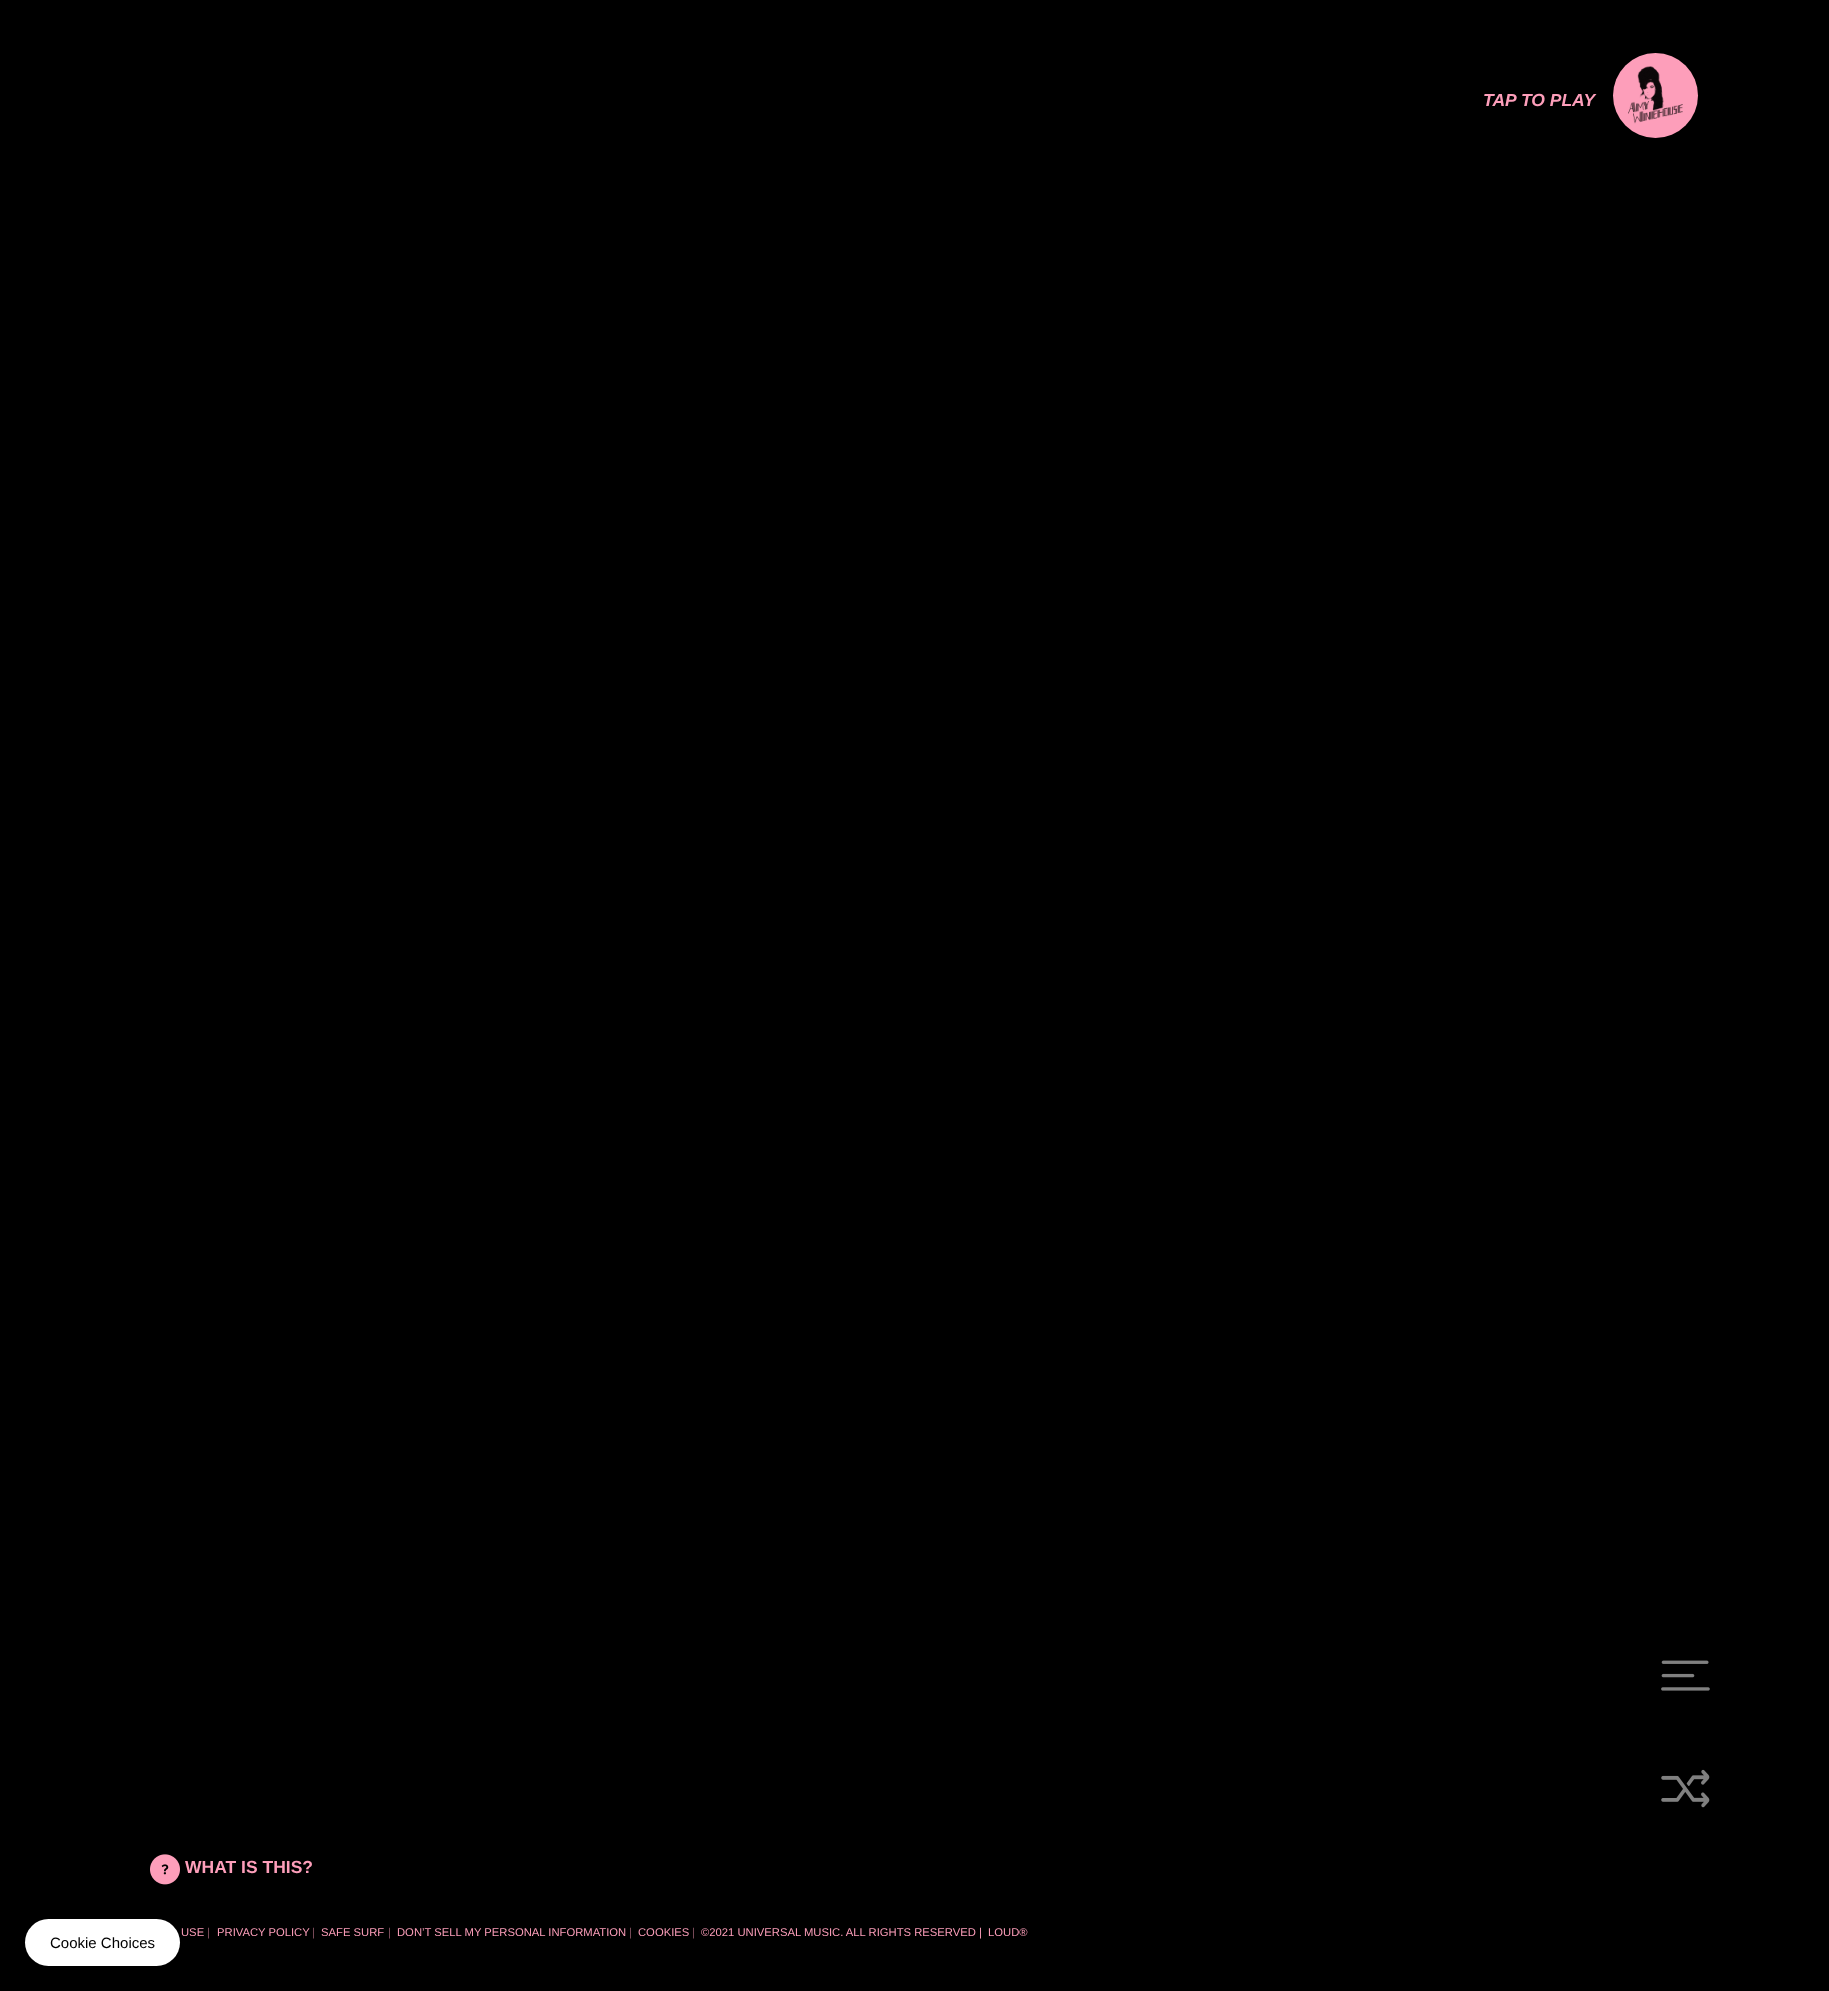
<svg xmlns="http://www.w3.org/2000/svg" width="1829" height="1991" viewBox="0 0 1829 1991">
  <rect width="100%" height="100%" fill="#000"/>
  <circle cx="1655.5" cy="95.5" r="42.5" fill="#fd9eba"/>
  <image x="1628" y="66" width="55" height="58" href="img/1.png"/>
  <image x="1661" y="1660" width="49" height="31" href="img/2.png"/>
  <image x="1661" y="1769" width="49" height="39" href="img/3.png"/>
  <image x="150" y="1854" width="30" height="31" href="img/4.png"/>
  <rect x="25" y="1919" width="155" height="47" rx="23.5" fill="#fff"/>
  <text x="1483" y="106" font-family="Liberation Sans" font-size="17.5" font-weight="bold" font-style="italic" fill="#fd9eba">TAP TO PLAY</text>
  <text x="185" y="1873" font-family="Liberation Sans" font-size="17.5" font-weight="bold" fill="#fd9eba">WHAT IS THIS?</text>
  <text x="181" y="1936" font-family="Liberation Sans" font-size="11.25" fill="#fd9eba">USE</text>
  <text x="207" y="1936" font-family="Liberation Sans" font-size="11.25" fill="#7f4f5d">|</text>
  <text x="217" y="1936" font-family="Liberation Sans" font-size="11.25" fill="#fd9eba">PRIVACY POLICY</text>
  <text x="312" y="1936" font-family="Liberation Sans" font-size="11.25" fill="#7f4f5d">|</text>
  <text x="321" y="1936" font-family="Liberation Sans" font-size="11.25" fill="#fd9eba">SAFE SURF</text>
  <text x="388" y="1936" font-family="Liberation Sans" font-size="11.25" fill="#7f4f5d">|</text>
  <text x="397" y="1936" font-family="Liberation Sans" font-size="11.25" fill="#fd9eba">DON’T SELL MY PERSONAL INFORMATION</text>
  <text x="629" y="1936" font-family="Liberation Sans" font-size="11.25" fill="#7f4f5d">|</text>
  <text x="638" y="1936" font-family="Liberation Sans" font-size="11.25" fill="#fd9eba">COOKIES</text>
  <text x="692" y="1936" font-family="Liberation Sans" font-size="11.25" fill="#7f4f5d">|</text>
  <g font-family="Liberation Sans" font-size="11.25" fill="#fd9eba">
    <text x="701" y="1936">©2021 UNIVERSAL MUSIC. ALL RIGHTS RESERVED |</text>
    <text x="988" y="1936">LOUD®</text>
  </g>
  <text x="50" y="1948" font-family="Liberation Sans" font-size="15" fill="#000">Cookie Choices</text>
</svg>
